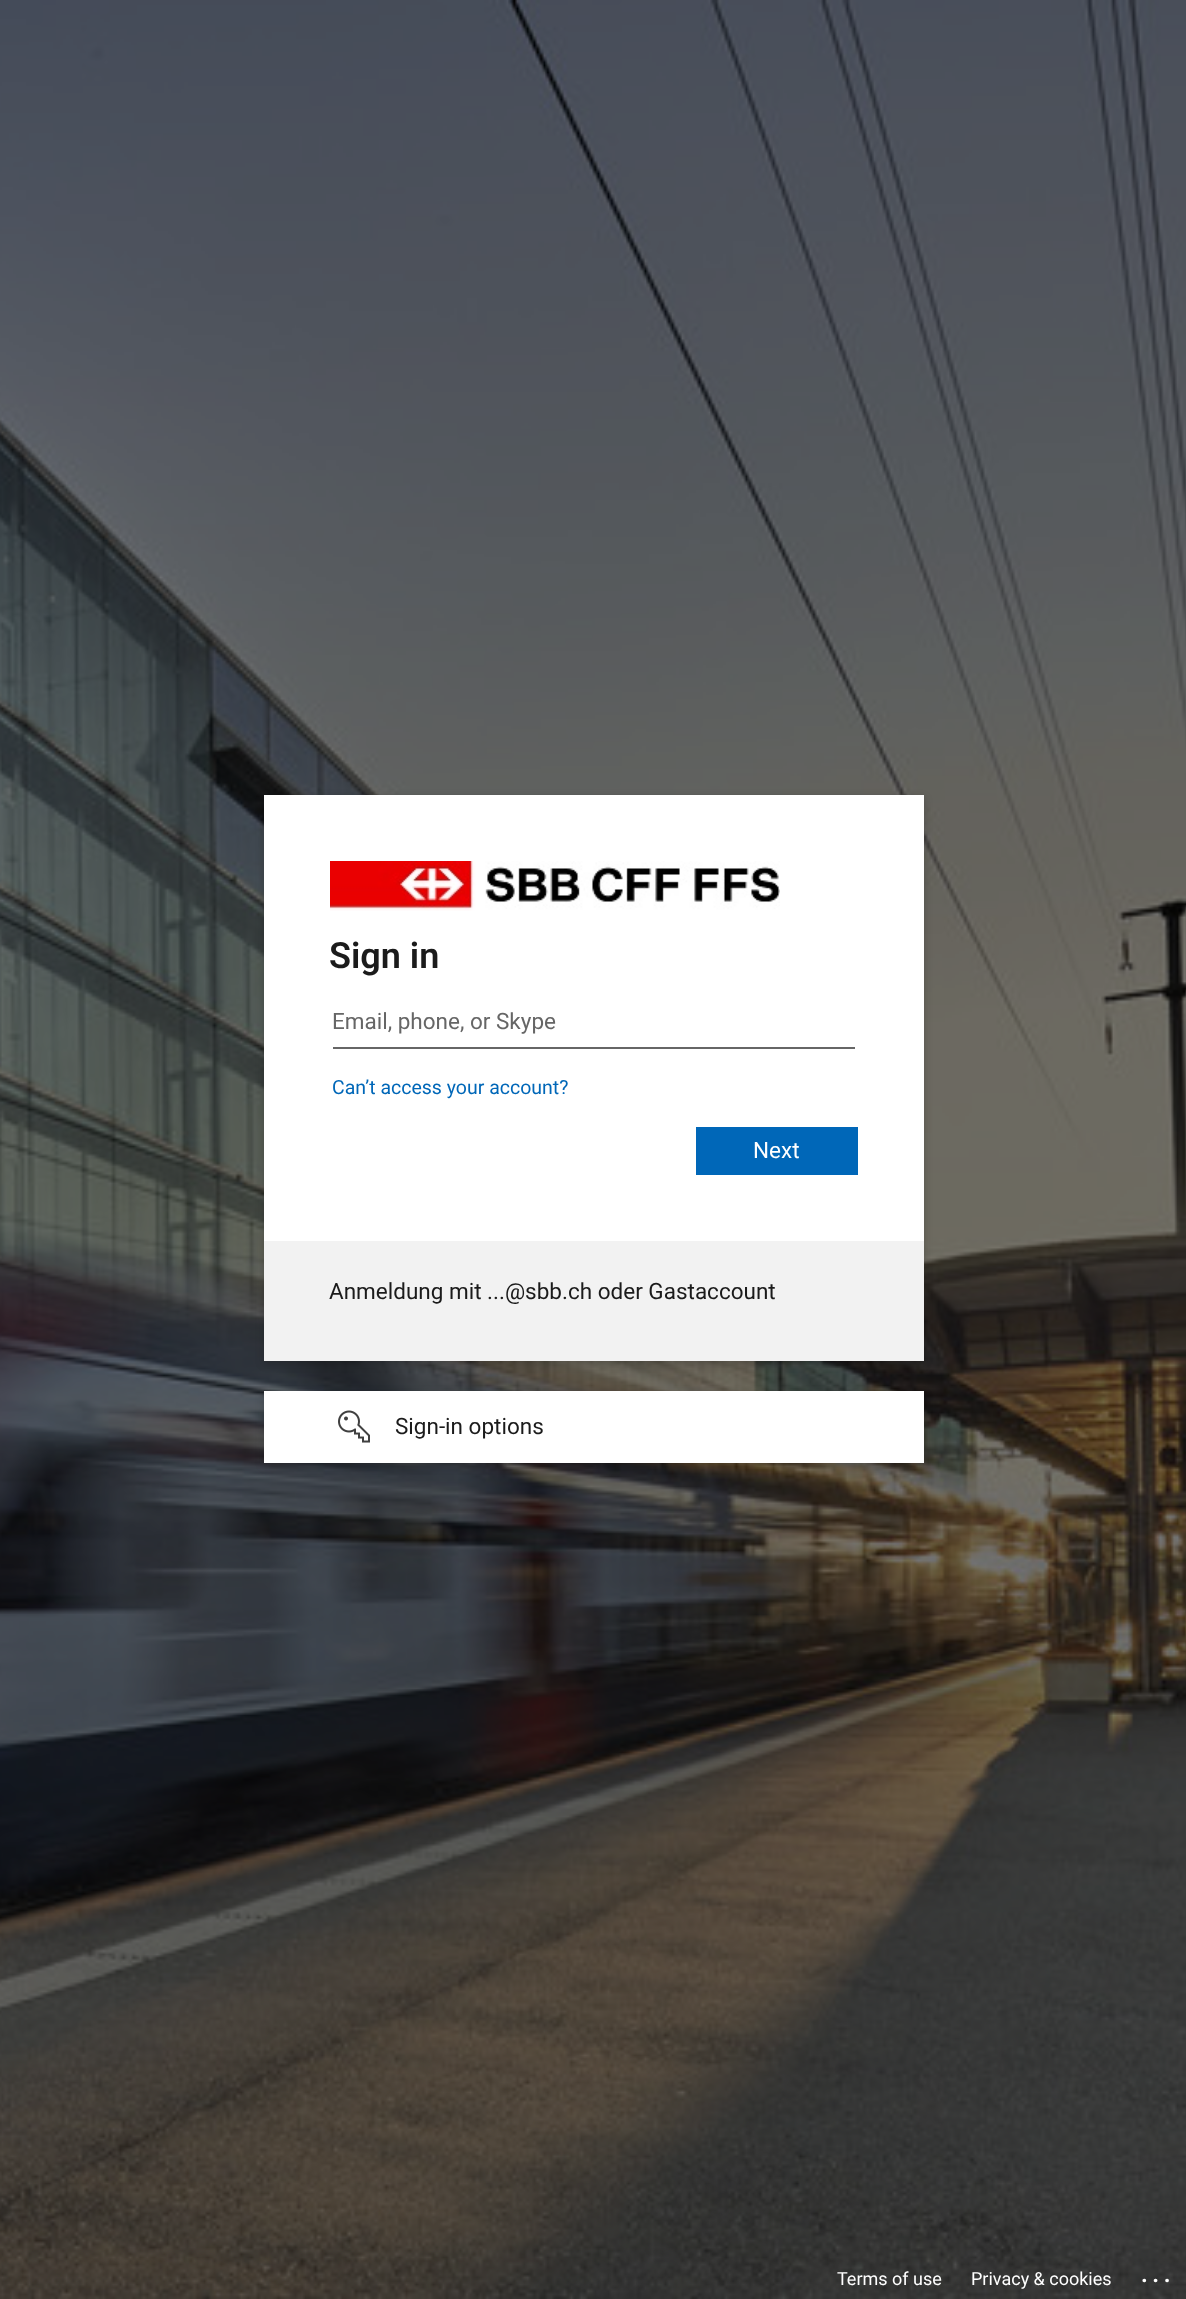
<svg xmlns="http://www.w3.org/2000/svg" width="1186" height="2299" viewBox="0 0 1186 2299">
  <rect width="100%" height="100%" fill="#fff"/>
  <image x="0" y="0" width="1186" height="2299" href="img/1.png"/>
  <path d="M264 798h660v566H264z" fill="#00000033" filter="blur(4.5px)"/>
  <path d="M264 795h660v446H264z" fill="#fff"/>
  <image x="330" y="861" width="450" height="50" href="img/2.png"/>
  <path d="M333 1047h522v2H333z" fill="#666"/>
  <path d="M696 1127h162v48H696z" fill="#0067b8"/>
  <path d="M264 1241h660v120H264z" fill="#f2f2f2"/>
  <path d="M264 1394h660v72H264z" fill="#00000033" filter="blur(4.5px)"/>
  <path d="M264 1391h660v72H264z" fill="#fff"/>
  <image x="338" y="1410" width="32" height="33" href="img/3.png"/>
  <text x="329" y="968" font-family="Roboto" font-size="36" font-weight="600" fill="#1b1b1b">Sign in</text>
  <text x="332" y="1029" font-family="Roboto" font-size="22.5" fill="#666">Email, phone, or Skype</text>
  <text x="332" y="1094" font-family="Roboto" font-size="19.5" fill="#0067b8">Can’t access your account?</text>
  <text x="753" y="1158" font-family="Roboto" font-size="22.5" fill="#fff">Next</text>
  <g font-family="Roboto" font-size="22.5" fill="#1b1b1b">
    <text x="329" y="1299">Anmeldung mit ...@sbb.ch oder Gastaccount</text>
    <text x="395" y="1434">Sign-in options</text>
  </g>
  <g font-family="Roboto" font-size="18" fill="#fff">
    <text x="837" y="2285">Terms of use</text>
    <text x="971" y="2285">Privacy &amp; cookies</text>
  </g>
  <text x="1141" y="2282" font-family="Roboto" font-size="24" font-weight="600" letter-spacing="4.5" fill="#fff">...</text>
</svg>
